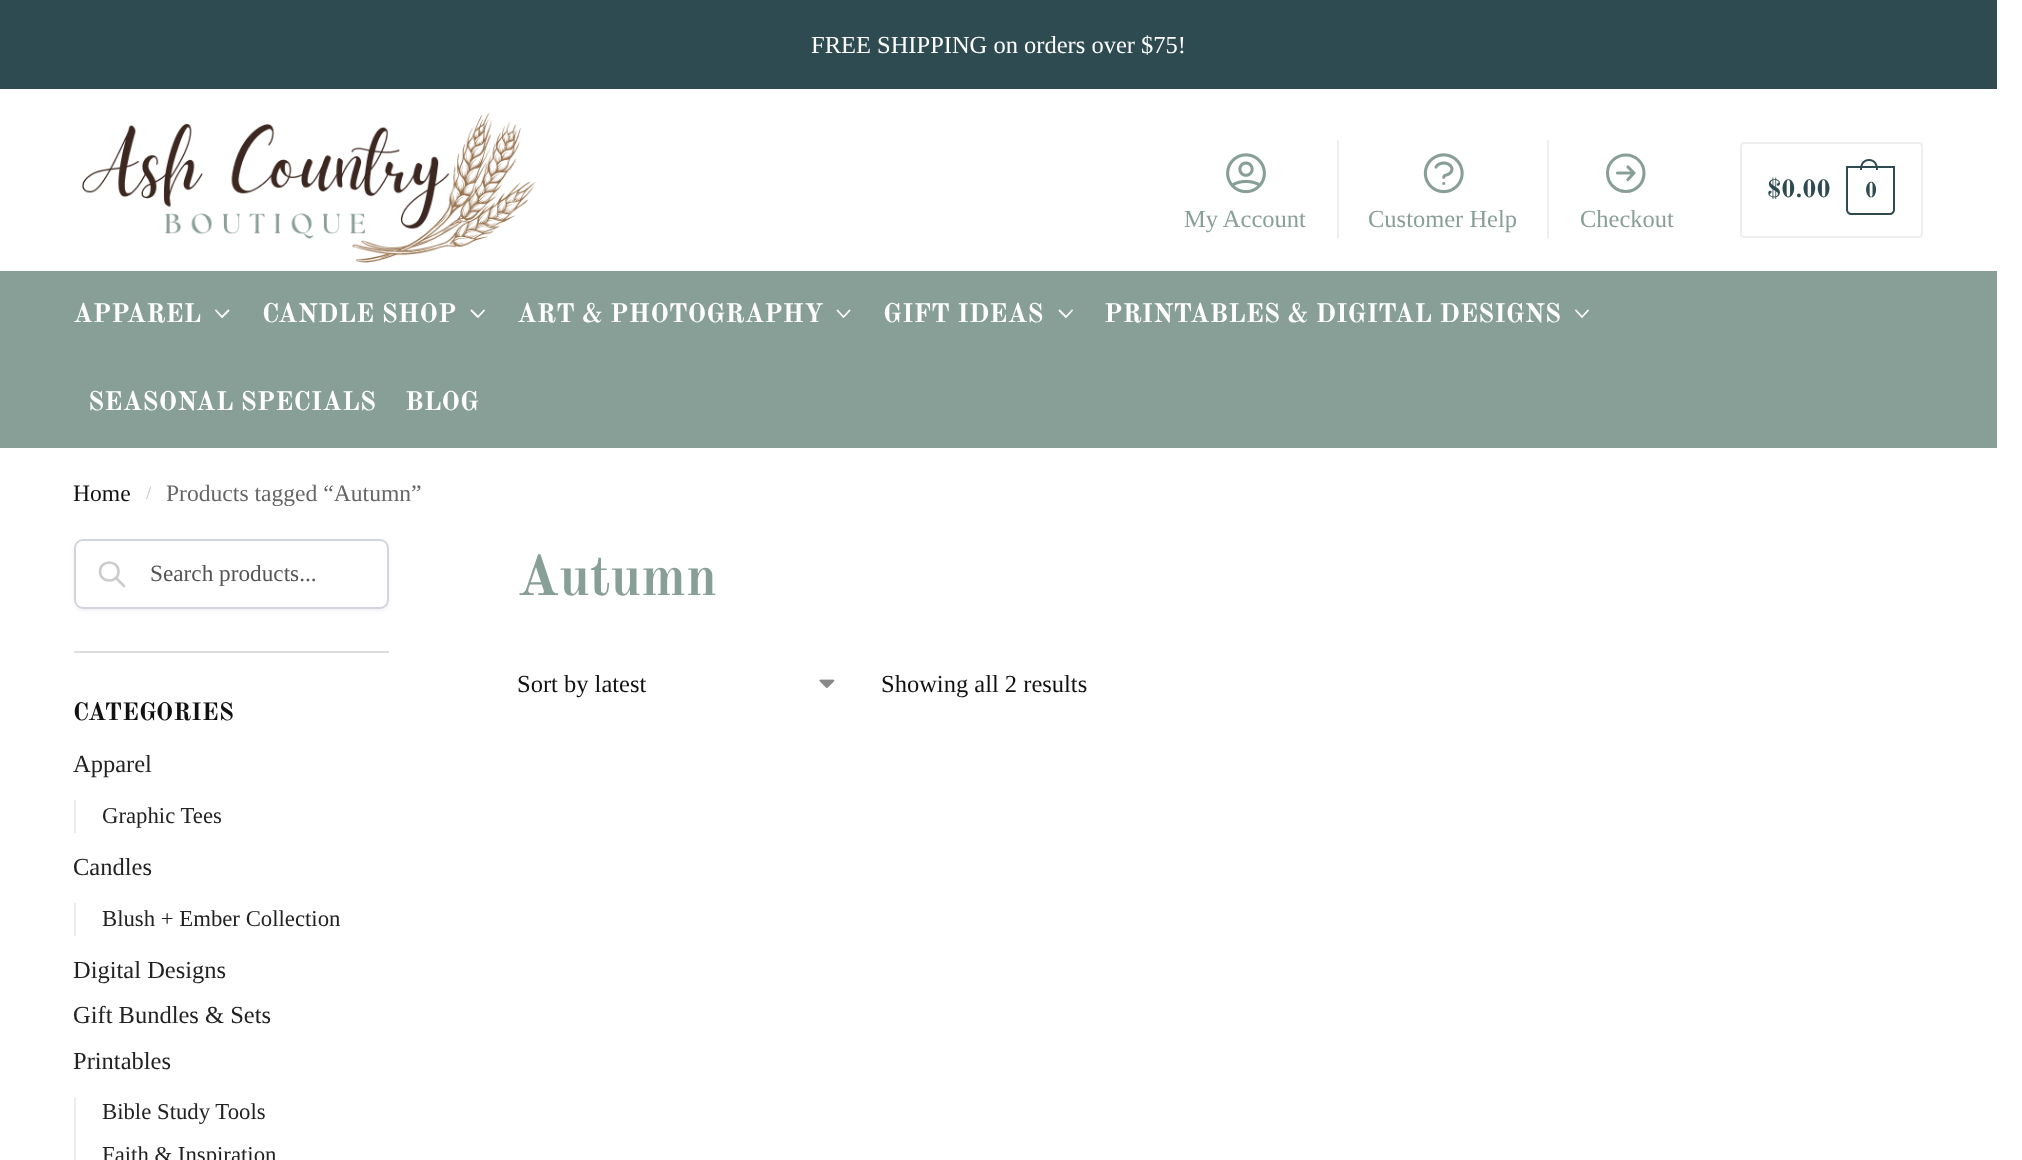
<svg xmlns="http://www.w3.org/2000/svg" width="2022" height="1160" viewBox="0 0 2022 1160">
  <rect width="100%" height="100%" fill="#fff"/>
  <path d="M0 0h1997v89H0z" fill="#2e4b51"/>
  <image x="82" y="112" width="454" height="151" href="img/1.png"/>
  <rect x="1741" y="143" width="181" height="94" rx="3" fill="none" stroke="#eee" stroke-width="2"/>
  <path d="M1847 167H1894V210C1894 212 1892 214 1890 214H1851C1849 214 1847 212 1847 210Z" fill="none" stroke="#2e4b51" stroke-width="2"/>
  <path d="M1869 159C1875.5 159 1878 164 1878 170H1860C1860 164 1862.5 159 1869 159ZM1869 161C1874.5 161 1876 165.5 1876 170H1862C1862 165.5 1863.5 161 1869 161Z" fill="#2e4b51" fill-rule="evenodd"/>
  <image x="1226" y="153" width="40" height="41" href="img/2.png"/>
  <path d="M1337 140h2v98H1337z" fill="#eee"/>
  <image x="1423" y="153" width="41" height="41" href="img/3.png"/>
  <path d="M1547 140h2v98H1547z" fill="#eee"/>
  <path d="M1628 167L1634 173M1634 173L1628 179.5M1634 173H1617.5M1644 173C1644 183.5 1636 191.5 1626 191.5C1615.5 191.5 1607.5 183.5 1607.5 173C1607.5 163 1615.5 155 1626 155C1636 155 1644 163 1644 173Z" fill="none" stroke="#889f97" stroke-width="3.1" stroke-linecap="round" stroke-linejoin="round"/>
  <path d="M0 271h1997v177H0z" fill="#889f97"/>
  <path d="M228.5 310.5L222 317L216 310.5" fill="none" stroke="#fff" stroke-width="1.8" stroke-linecap="round" stroke-linejoin="round"/>
  <path d="M484 310.5L478 317L471.5 310.5" fill="none" stroke="#fff" stroke-width="1.8" stroke-linecap="round" stroke-linejoin="round"/>
  <path d="M849.5 310.5L843.5 317L837.5 310.5" fill="none" stroke="#fff" stroke-width="1.8" stroke-linecap="round" stroke-linejoin="round"/>
  <path d="M1072 310.5L1066 317L1059.5 310.5" fill="none" stroke="#fff" stroke-width="1.8" stroke-linecap="round" stroke-linejoin="round"/>
  <path d="M1588 310.5L1582 317L1576 310.5" fill="none" stroke="#fff" stroke-width="1.8" stroke-linecap="round" stroke-linejoin="round"/>
  <path d="M74 651h315v2H74z" fill="#ddd"/>
  <rect x="74" y="541" width="315" height="70" rx="9" fill="#0000000d" filter="blur(2px)"/>
  <rect x="75" y="540" width="313" height="68" rx="8" fill="#fff" stroke="#d2d6dc" stroke-width="2"/>
  <path d="M124 586L116 578M118.5 571.5C118.5 583.5 100 583.5 100 571.5C100 559.5 118.5 559.5 118.5 571.5Z" fill="none" stroke="#ccc" stroke-width="2.6" stroke-linecap="round" stroke-linejoin="round"/>
  <path d="M74 800h2v33H74z" fill="#eee"/>
  <path d="M74 903h2v33H74z" fill="#eee"/>
  <path d="M74 1097h2v63H74z" fill="#eee"/>
  <image x="819" y="679" width="16" height="9" href="img/4.png"/>
  <text x="811" y="53" font-family="Liberation Serif" font-size="24.5" fill="#fff">FREE SHIPPING on orders over $75!</text>
  <text x="1767" y="197" font-family="Old Standard TT" font-size="24.5" font-weight="bold" fill="#2e4b51">$0.00</text>
  <text x="1865" y="197" font-family="Old Standard TT" font-size="21" font-weight="bold" letter-spacing="-1" fill="#2e4b51">0</text>
  <g font-family="Liberation Serif" font-size="24.5" fill="#889f97">
    <text x="1184" y="227">My Account</text>
    <text x="1368" y="227">Customer Help</text>
    <text x="1580" y="227">Checkout</text>
  </g>
  <g font-family="Old Standard TT" font-size="26.25" font-weight="bold" fill="#fff">
    <text x="73" y="322">APPAREL</text>
    <text x="262" y="322">CANDLE SHOP</text>
    <text x="517" y="322">ART &amp; PHOTOGRAPHY</text>
    <text x="883" y="322">GIFT IDEAS</text>
    <text x="1104" y="322">PRINTABLES &amp; DIGITAL DESIGNS</text>
    <text x="88" y="410">SEASONAL SPECIALS</text>
    <text x="405" y="410">BLOG</text>
  </g>
  <text x="73" y="501" font-family="Liberation Serif" font-size="23.6" fill="#111">Home</text>
  <text x="146" y="499" font-family="Liberation Serif" font-size="19" fill="#c2c2c2">/</text>
  <text x="166" y="501" font-family="Liberation Serif" font-size="23.6" fill="#666">Products tagged “Autumn”</text>
  <text x="150" y="581" font-family="Liberation Serif" font-size="23.25" fill="#555">Search products...</text>
  <text x="73" y="720" font-family="Old Standard TT" font-size="24.5" font-weight="bold" fill="#111">CATEGORIES</text>
  <text x="73" y="772" font-family="Liberation Serif" font-size="24.5" fill="#222">Apparel</text>
  <text x="102" y="823" font-family="Liberation Serif" font-size="22.75" fill="#222">Graphic Tees</text>
  <text x="73" y="875" font-family="Liberation Serif" font-size="24.5" fill="#222">Candles</text>
  <text x="102" y="926" font-family="Liberation Serif" font-size="22.75" fill="#222">Blush + Ember Collection</text>
  <g font-family="Liberation Serif" font-size="24.5" fill="#222">
    <text x="73" y="978">Digital Designs</text>
    <text x="73" y="1023">Gift Bundles &amp; Sets</text>
    <text x="73" y="1069">Printables</text>
  </g>
  <g font-family="Liberation Serif" font-size="22.75" fill="#222">
    <text x="102" y="1119">Bible Study Tools</text>
    <text x="102" y="1162">Faith &amp; Inspiration</text>
  </g>
  <text x="517" y="595" font-family="Old Standard TT" font-size="56" font-weight="bold" fill="#889f97">Autumn</text>
  <g font-family="Liberation Serif" font-size="24.5" fill="#111">
    <text x="517" y="692">Sort by latest</text>
    <text x="881" y="692">Showing all 2 results</text>
  </g>
</svg>
